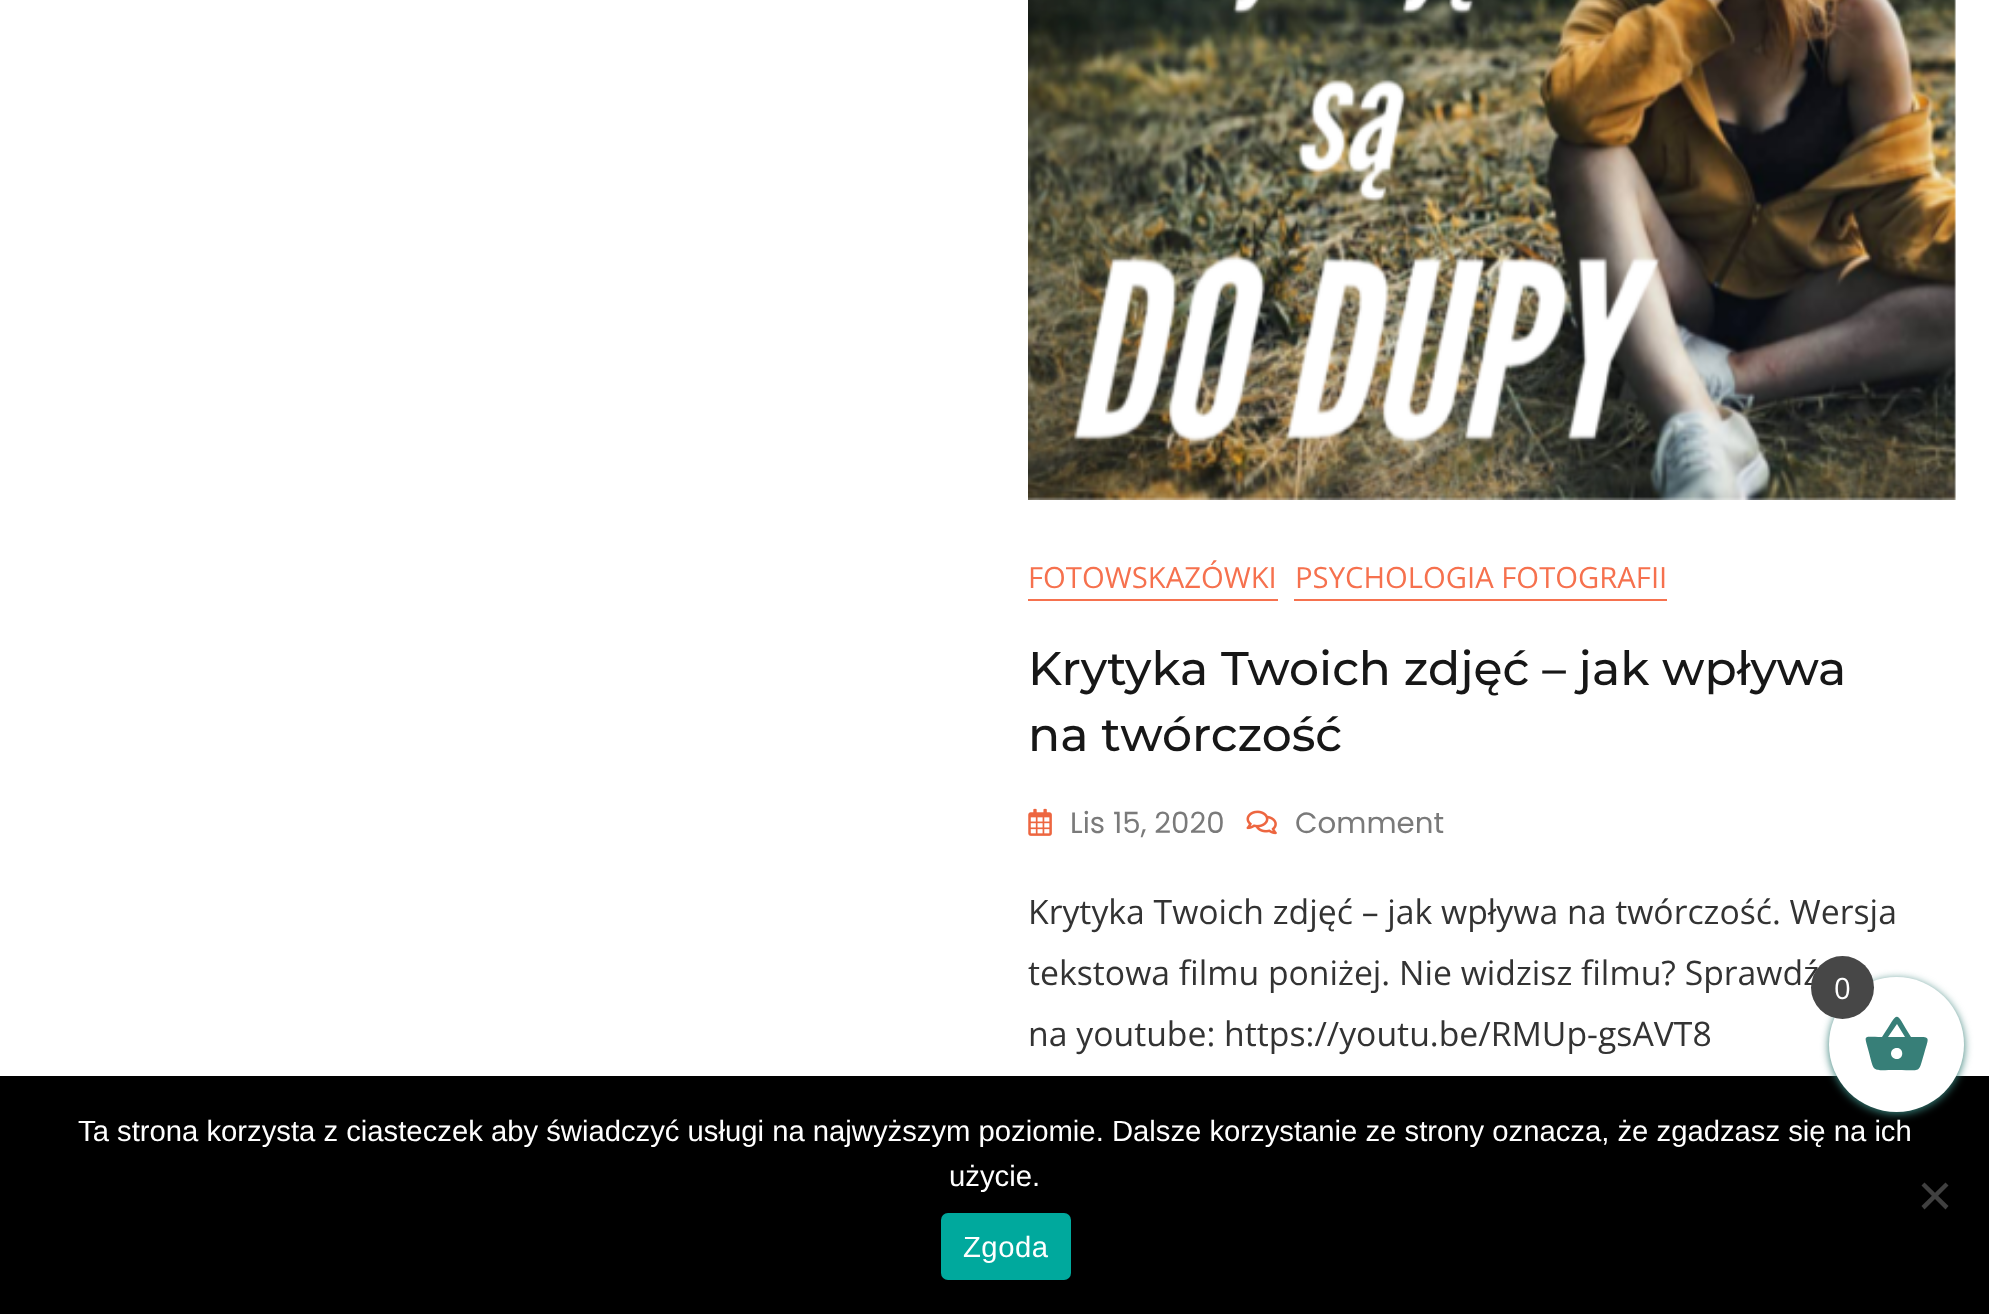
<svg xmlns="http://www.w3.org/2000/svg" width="1989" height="1314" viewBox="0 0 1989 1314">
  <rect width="100%" height="100%" fill="#fff"/>
  <image x="1028" y="0" width="928" height="500" href="img/1.png"/>
  <path d="M1028 599h250v2H1028z" fill="#f6714e"/>
  <path d="M1294 599h373v2H1294z" fill="#f6714e"/>
  <image x="1028" y="808" width="24" height="28" href="img/2.png"/>
  <image x="1246" y="810" width="31" height="25" href="img/3.png"/>
  <path d="M0 1076h1989v238H0z" fill="#000"/>
  <rect x="1829" y="979" width="135" height="135" rx="67.5" fill="#377f78" filter="blur(4.5px)"/>
  <circle cx="1896.5" cy="1044.5" r="67.5" fill="#fff"/>
  <path d="M1897 1059C1904 1059 1904 1048 1897 1048C1889 1048 1889 1059 1897 1059ZM1888 1037H1905L1897 1024ZM1911 1037C1932 1037 1929 1035 1924 1054C1918 1074 1922 1070 1897 1070C1870 1070 1875 1074 1868 1049C1864 1034 1863 1037 1882 1037C1900 1010 1894 1010 1911 1037Z" fill="#377f78"/>
  <path d="M1945.5 1182.5L1948.5 1185.5L1924.5 1209.5L1921.5 1206Z" fill="#404040"/>
  <path d="M1921.5 1185.5L1924.5 1182.5L1948.5 1206L1945.5 1209.5Z" fill="#404040"/>
  <rect x="941" y="1213" width="130" height="67" rx="7" fill="#00a99d"/>
  <g font-family="Open Sans" font-size="29.25" fill="#f6714e">
    <text x="1028" y="588">FOTOWSKAZÓWKI</text>
    <text x="1295" y="588">PSYCHOLOGIA FOTOGRAFII</text>
  </g>
  <g font-family="Montserrat" font-size="47.25" font-weight="100" fill="#171717">
    <text x="1028" y="685">Krytyka Twoich zdjęć – jak wpływa</text>
    <text x="1028" y="751">na twórczość</text>
  </g>
  <g font-family="Poppins" font-size="29.25" fill="#7a7a7a">
    <text x="1070" y="833">Lis 15, 2020</text>
    <text x="1295" y="833">Comment</text>
  </g>
  <g font-family="Open Sans" font-size="33.75" fill="#333">
    <text x="1028" y="924">Krytyka Twoich zdjęć – jak wpływa na twórczość. Wersja</text>
    <text x="1028" y="985">tekstowa filmu poniżej. Nie widzisz filmu? Sprawdź</text>
    <text x="1028" y="1046">na youtube: https://youtu.be/RMUp-gsAVT8</text>
  </g>
  <circle cx="1842.5" cy="987.5" r="31.5" fill="#474747"/>
  <text x="1834" y="999" font-family="Open Sans" font-size="29.25" fill="#fff">0</text>
  <g font-family="Liberation Sans" font-size="29.25" fill="#fff">
    <text x="78" y="1141">Ta strona korzysta z ciasteczek aby świadczyć usługi na najwyższym poziomie. Dalsze korzystanie ze strony oznacza, że zgadzasz się na ich</text>
    <text x="949" y="1186">użycie.</text>
  </g>
  <text x="963" y="1257" font-family="Liberation Sans" font-size="29.25" letter-spacing="0.5" fill="#fff">Zgoda</text>
</svg>
